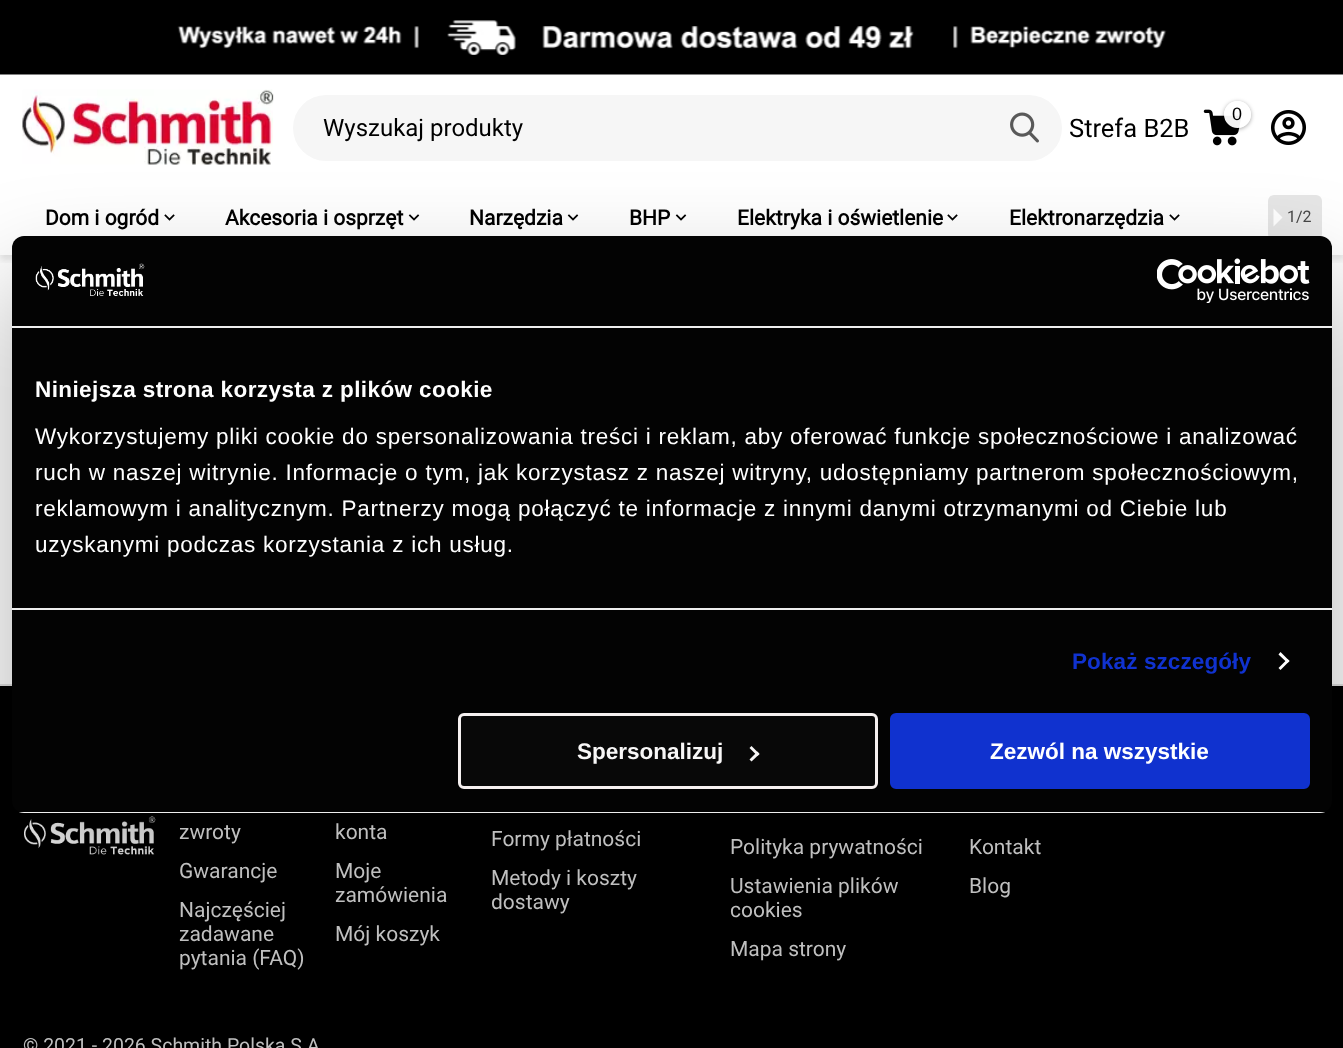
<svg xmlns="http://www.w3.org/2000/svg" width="1343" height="1048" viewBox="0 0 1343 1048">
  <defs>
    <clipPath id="clip1"><path d="M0 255h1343v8H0z"/></clipPath>
    <clipPath id="clip2"><path d="M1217 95H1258V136H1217ZM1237.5 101C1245 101 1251 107 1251 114.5C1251 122 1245 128 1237.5 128C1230 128 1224 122 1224 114.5C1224 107 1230 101 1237.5 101Z" clip-rule="evenodd"/></clipPath>
    <clipPath id="clip3"><rect x="12" y="236" width="1320" height="577" rx="12"/></clipPath>
  </defs>
  <rect width="100%" height="100%" fill="#fff"/>
  <g clip-path="url(#clip1)">
    <path d="M0 5h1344v255H0z" fill="#0000001a" filter="blur(3px)"/>
  </g>
  <image x="0" y="0" width="1343" height="75" href="img/1.png"/>
  <image x="22" y="89" width="252" height="76" href="img/2.png"/>
  <image x="1203" y="109" width="39" height="37" href="img/3.png"/>
  <g clip-path="url(#clip2)">
    <rect x="1224" y="102" width="27" height="27" rx="13.5" fill="#00000059" filter="blur(2px)"/>
  </g>
  <circle cx="1237.5" cy="114.5" r="13.5" fill="#fffffff2"/>
  <image x="1271" y="110" width="35" height="35" href="img/4.png"/>
  <rect x="293" y="95" width="769" height="66" rx="33" fill="#f6f6f6"/>
  <image x="1010" y="112" width="29" height="31" href="img/5.png"/>
  <image x="164" y="214" width="11" height="7" href="img/6.png"/>
  <image x="408" y="214" width="12" height="7" href="img/7.png"/>
  <image x="567" y="214" width="12" height="7" href="img/7.png"/>
  <image x="675" y="214" width="12" height="7" href="img/7.png"/>
  <image x="947" y="214" width="11" height="7" href="img/6.png"/>
  <image x="1169" y="214" width="11" height="7" href="img/6.png"/>
  <rect x="1268" y="195" width="54" height="45" rx="6" fill="#e6e6e6"/>
  <path d="M1273.5 226.5V208.5L1282.5 217.5Z" fill="#fff"/>
  <path d="M0 686h1343v362H0z" fill="#000"/>
  <path d="M0 684h1343v2H0z" fill="#e1e1e1"/>
  <image x="24" y="816" width="132" height="39" href="img/8.png"/>
  <rect x="12" y="284" width="1320" height="577" rx="12" fill="#0000004d" filter="blur(51px)"/>
  <rect x="12" y="236" width="1320" height="577" rx="12" fill="#030303"/>
  <path d="M12 326h1320v2H12z" fill="#eee"/>
  <image x="35" y="263" width="110" height="33" href="img/9.png"/>
  <image x="1157" y="258" width="153" height="45" href="img/10.png"/>
  <path d="M12 608h1320v2H12z" fill="#eee"/>
  <path d="M1280.5 652L1289.5 661L1287.5 663L1278.5 654.5Z" fill="#fff"/>
  <path d="M1287.5 659L1289.5 661L1280.5 670L1278.5 668Z" fill="#fff"/>
  <g clip-path="url(#clip3)">
    <path d="M12 812h1320v1H12z" fill="#eee"/>
  </g>
  <rect x="459.5" y="714.5" width="417" height="73" rx="4.5" fill="#080808" stroke="#f5f0f0" stroke-width="3"/>
  <path d="M751.5 746L759.5 754L757.5 756L749.5 748Z" fill="#f8f7f7"/>
  <path d="M757.5 751.5L759.5 754L751.5 761.5L749.5 759.5Z" fill="#f8f7f7"/>
  <rect x="891.5" y="714.5" width="417" height="73" rx="4.5" fill="#1032cf" stroke="#1032cf" stroke-width="3"/>
  <text x="1232" y="120" font-family="Liberation Sans" font-size="18" fill="#000">0</text>
  <text x="323" y="136" font-family="Roboto" font-size="24" fill="#000">Wyszukaj produkty</text>
  <text x="1069" y="137" font-family="Roboto" font-size="25.5" fill="#000">Strefa B2B</text>
  <g font-family="Roboto" font-size="21" font-weight="bold" fill="#000">
    <text x="45" y="225">Dom i ogród</text>
    <text x="225" y="225">Akcesoria i osprzęt</text>
    <text x="469" y="225">Narzędzia</text>
    <text x="629" y="225">BHP</text>
    <text x="737" y="225">Elektryka i oświetlenie</text>
    <text x="1009" y="225">Elektronarzędzia</text>
  </g>
  <text x="1287" y="222" font-family="Roboto" font-size="16" fill="#454545">1/2</text>
  <g font-family="Roboto" font-size="21" fill="#bfbfbf">
    <text x="179" y="839">zwroty</text>
    <text x="179" y="878">Gwarancje</text>
    <text x="179" y="917">Najczęściej</text>
    <text x="179" y="941">zadawane</text>
    <text x="179" y="965">pytania (FAQ)</text>
    <text x="335" y="839">konta</text>
    <text x="335" y="878">Moje</text>
    <text x="335" y="902">zamówienia</text>
    <text x="335" y="941">Mój koszyk</text>
    <text x="491" y="846">Formy płatności</text>
    <text x="491" y="885">Metody i koszty</text>
    <text x="491" y="909">dostawy</text>
    <text x="730" y="854">Polityka prywatności</text>
    <text x="730" y="893">Ustawienia plików</text>
    <text x="730" y="917">cookies</text>
    <text x="730" y="956">Mapa strony</text>
    <text x="969" y="854">Kontakt</text>
    <text x="969" y="893">Blog</text>
  </g>
  <text x="23" y="1052" font-family="Roboto" font-size="19.5" fill="#bfbfbf">© 2021 - 2026 Schmith Polska S.A</text>
  <text x="35" y="397" font-family="Liberation Sans" font-size="22.5" font-weight="bold" letter-spacing="0.4" fill="#fff">Niniejsza strona korzysta z plików cookie</text>
  <g font-family="Liberation Sans" font-size="22.5" letter-spacing="0.75" fill="#fff">
    <text x="35" y="444">Wykorzystujemy pliki cookie do spersonalizowania treści i reklam, aby oferować funkcje społecznościowe i analizować</text>
    <text x="35" y="480">ruch w naszej witrynie. Informacje o tym, jak korzystasz z naszej witryny, udostępniamy partnerom społecznościowym,</text>
    <text x="35" y="516">reklamowym i analitycznym. Partnerzy mogą połączyć te informacje z innymi danymi otrzymanymi od Ciebie lub</text>
    <text x="35" y="552">uzyskanymi podczas korzystania z ich usług.</text>
  </g>
  <text x="1072" y="669" font-family="Liberation Sans" font-size="22.5" font-weight="bold" letter-spacing="0.1" fill="#1032cf">Pokaż szczegóły</text>
  <text x="577" y="759" font-family="Liberation Sans" font-size="22.5" font-weight="bold" fill="#f8f7f7">Spersonalizuj</text>
  <text x="990" y="759" font-family="Liberation Sans" font-size="22.5" font-weight="bold" fill="#fff">Zezwól na wszystkie</text>
</svg>
